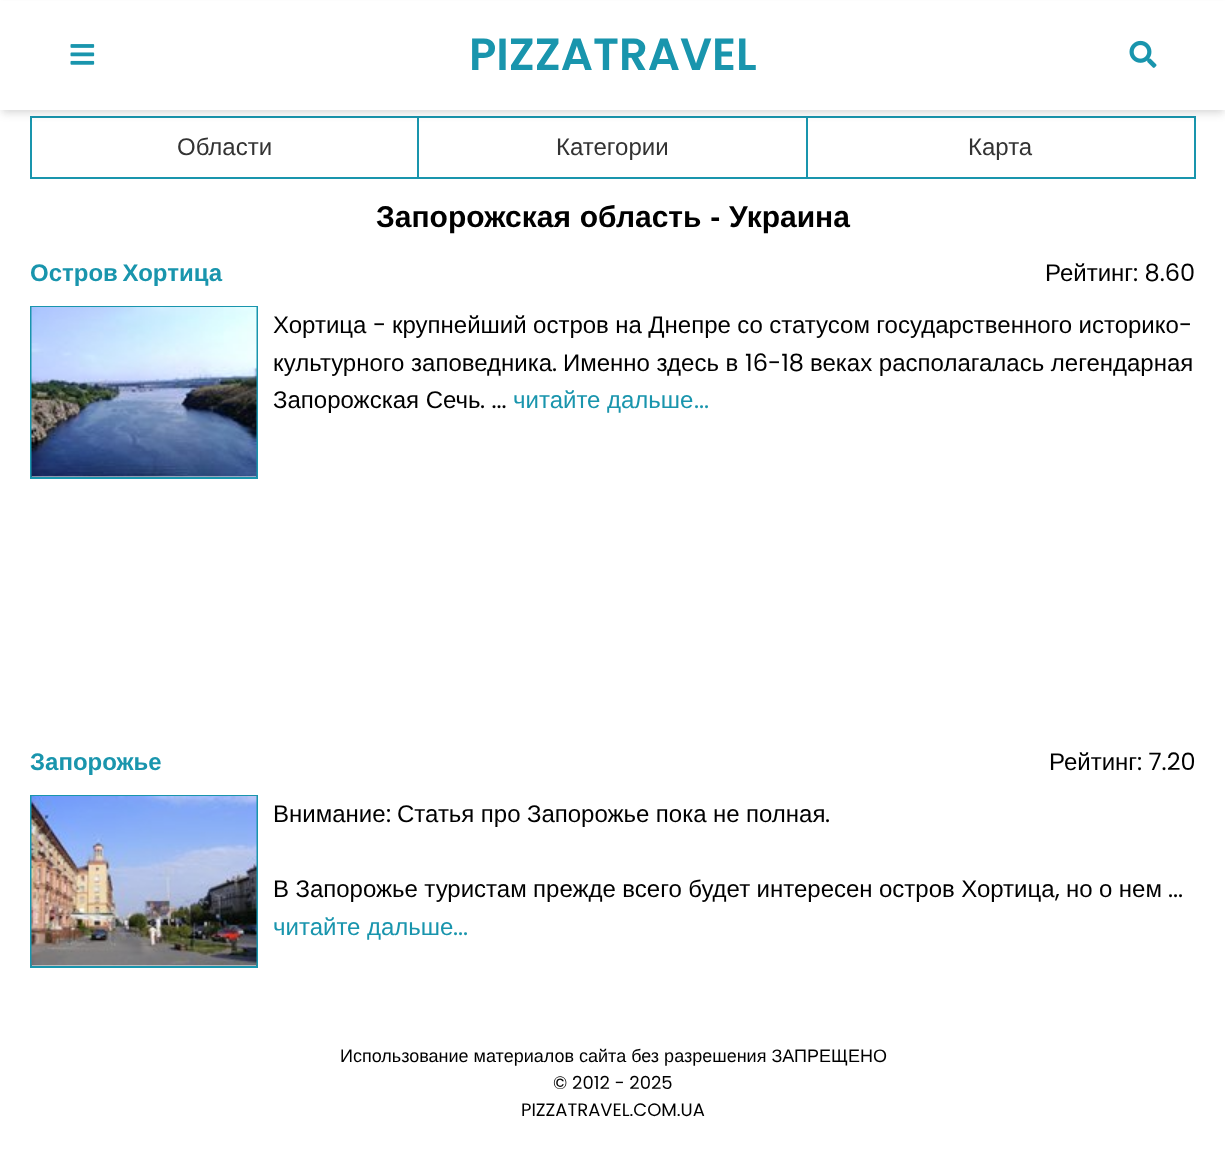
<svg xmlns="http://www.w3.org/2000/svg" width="1225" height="1151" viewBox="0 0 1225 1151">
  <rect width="100%" height="100%" fill="#fff"/>
  <path d="M31 117h1164v61H31z" fill="none" stroke="#1995ad" stroke-width="2"/>
  <path d="M417 117h2v60H417z" fill="#1995ad"/>
  <path d="M806 117h2v60H806z" fill="#1995ad"/>
  <path d="M2 5h1222v106H2z" fill="#0000000f" filter="blur(3px)"/>
  <path d="M2 8h1222v106H2z" fill="#0000001a" filter="blur(4.5px)"/>
  <path d="M0 1h1225v109H0z" fill="#fff"/>
  <image x="70" y="44" width="25" height="21" href="img/1.png"/>
  <image x="1129" y="40" width="28" height="28" href="img/2.png"/>
  <path d="M31 307h226v171H31z" fill="none" stroke="#1995ad" stroke-width="2"/>
  <image x="31" y="307" width="226" height="170" href="img/3.png"/>
  <path d="M31 796h226v171H31z" fill="none" stroke="#1995ad" stroke-width="2"/>
  <image x="31" y="796" width="226" height="170" href="img/4.png"/>
  <text x="469" y="70" font-family="Poppins" font-size="45" font-weight="600" fill="#1995ad">PIZZATRAVEL</text>
  <g font-family="Liberation Sans" font-size="24" fill="#333">
    <text x="177" y="155">Области</text>
    <text x="556" y="155">Категории</text>
    <text x="968" y="155">Карта</text>
  </g>
  <text x="376" y="227" word-spacing="0.5" font-family="Liberation Sans" font-size="30" font-weight="bold" fill="#000">Запорожская область - Украина</text>
  <text x="30" y="281" word-spacing="-2" font-family="Liberation Sans" font-size="24" font-weight="bold" fill="#1995ad">Остров Хортица</text>
  <text x="1045" y="281" font-family="Liberation Sans" font-size="24" fill="#000">Рейтинг</text>
  <text x="1133" y="281" font-family="Poppins" font-size="24" fill="#000">: 8.60</text>
  <text x="273" y="333" font-family="Liberation Sans" font-size="24" fill="#000">Хортица</text>
  <text x="373" y="333" font-family="Poppins" font-size="24" fill="#000">-</text>
  <text x="392" y="333" word-spacing="-0.25" font-family="Liberation Sans" font-size="24" fill="#000">крупнейший остров на Днепре со статусом государственного историко</text>
  <text x="1179" y="333" font-family="Poppins" font-size="24" fill="#000">-</text>
  <text x="273" y="371" font-family="Liberation Sans" font-size="24" fill="#000">культурного заповедника</text>
  <text x="552" y="371" font-family="Poppins" font-size="24" fill="#000">.</text>
  <text x="563" y="371" font-family="Liberation Sans" font-size="24" fill="#000">Именно здесь в</text>
  <text x="745" y="371" font-family="Poppins" font-size="24" fill="#000">16-18</text>
  <g font-family="Liberation Sans" font-size="24" fill="#000">
    <text x="810" y="371">веках располагалась легендарная</text>
    <text x="273" y="408">Запорожская Сечь</text>
  </g>
  <text x="480" y="408" font-family="Poppins" font-size="24" fill="#000">. ...</text>
  <text x="513" y="408" word-spacing="-0.25" font-family="Liberation Sans" font-size="24" fill="#1995ad">читайте дальше</text>
  <text x="694" y="408" font-family="Poppins" font-size="24" fill="#1995ad">...</text>
  <text x="30" y="770" font-family="Liberation Sans" font-size="24" font-weight="bold" fill="#1995ad">Запорожье</text>
  <text x="1049" y="770" font-family="Liberation Sans" font-size="24" fill="#000">Рейтинг</text>
  <text x="1137" y="770" font-family="Poppins" font-size="24" fill="#000">: 7.20</text>
  <text x="273" y="822" font-family="Liberation Sans" font-size="24" fill="#000">Внимание</text>
  <text x="386" y="822" font-family="Poppins" font-size="24" fill="#000">:</text>
  <text x="397" y="822" word-spacing="-0.25" font-family="Liberation Sans" font-size="24" fill="#000">Статья про Запорожье пока не полная</text>
  <text x="825" y="822" font-family="Poppins" font-size="24" fill="#000">.</text>
  <text x="273" y="897" word-spacing="-0.25" font-family="Liberation Sans" font-size="24" fill="#000">В Запорожье туристам прежде всего будет интересен остров Хортица</text>
  <text x="1055" y="897" font-family="Poppins" font-size="24" fill="#000">,</text>
  <text x="1066" y="897" word-spacing="-0.25" font-family="Liberation Sans" font-size="24" fill="#000">но о нем</text>
  <text x="1168" y="897" font-family="Poppins" font-size="24" fill="#000">...</text>
  <text x="273" y="935" word-spacing="-0.25" font-family="Liberation Sans" font-size="24" fill="#1995ad">читайте дальше</text>
  <text x="453" y="935" font-family="Poppins" font-size="24" fill="#1995ad">...</text>
  <text x="340" y="1062" font-family="Liberation Sans" font-size="18" fill="#000">Использование материалов сайта без разрешения ЗАПРЕЩЕНО</text>
  <g font-family="Poppins" font-size="18" fill="#000">
    <text x="553" y="1089">© 2012 - 2025</text>
    <text x="521" y="1116">PIZZATRAVEL.COM.UA</text>
  </g>
</svg>
